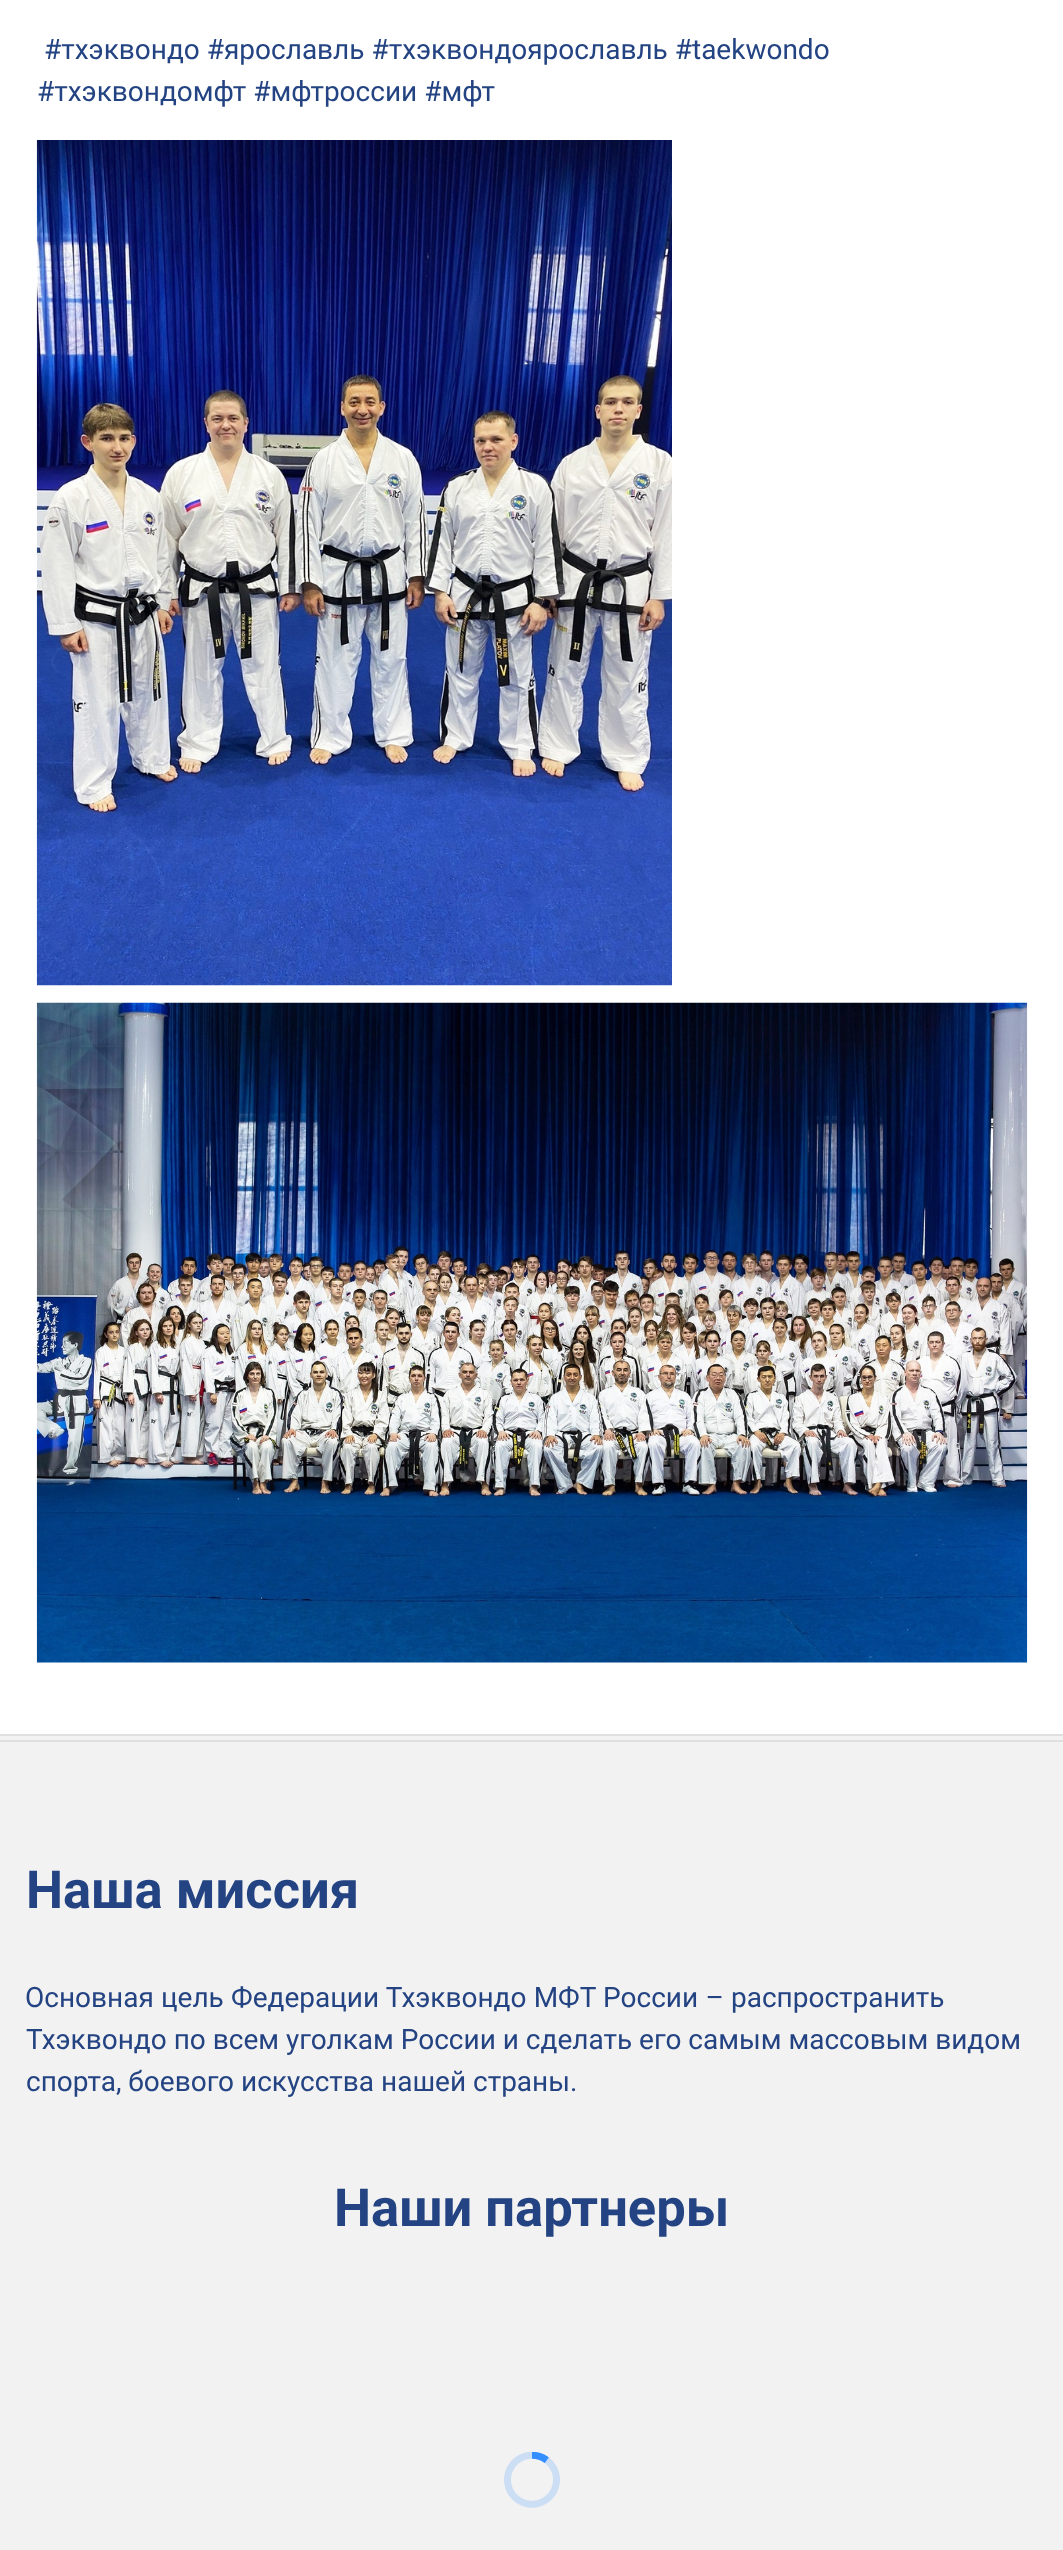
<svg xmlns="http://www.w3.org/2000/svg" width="1063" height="2550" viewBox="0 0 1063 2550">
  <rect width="100%" height="100%" fill="#fff"/>
  <image x="36" y="140" width="636" height="846" href="img/1.png"/>
  <image x="36" y="1002" width="992" height="661" href="img/2.png"/>
  <path d="M0 1736h1063v4H0z" fill="#f2f2f2"/>
  <path d="M0 1734h1063v2H0z" fill="#e0e0e0"/>
  <path d="M0 1740h1063v2H0z" fill="#e0e0e0"/>
  <path d="M0 1742h1063v808H0z" fill="#f2f2f2"/>
  <image x="504" y="2452" width="56" height="56" href="img/3.png"/>
  <g font-family="Roboto" font-size="28" fill="#234382">
    <text x="44" y="59">#тхэквондо #ярославль #тхэквондоярославль #taekwondo</text>
    <text x="37" y="101">#тхэквондомфт #мфтроссии #мфт</text>
  </g>
  <text x="26" y="1908" font-family="Roboto" font-size="52.5" font-weight="bold" fill="#234382">Наша миссия</text>
  <g font-family="Roboto" font-size="28" fill="#234382">
    <text x="25" y="2007" word-spacing="0.25">Основная цель Федерации Тхэквондо МФТ России – распространить</text>
    <text x="26" y="2049">Тхэквондо по всем уголкам России и сделать его самым массовым видом</text>
    <text x="26" y="2091">спорта, боевого искусства нашей страны.</text>
  </g>
  <text x="334" y="2226" font-family="Roboto" font-size="52.5" font-weight="bold" fill="#234382">Наши партнеры</text>
</svg>
